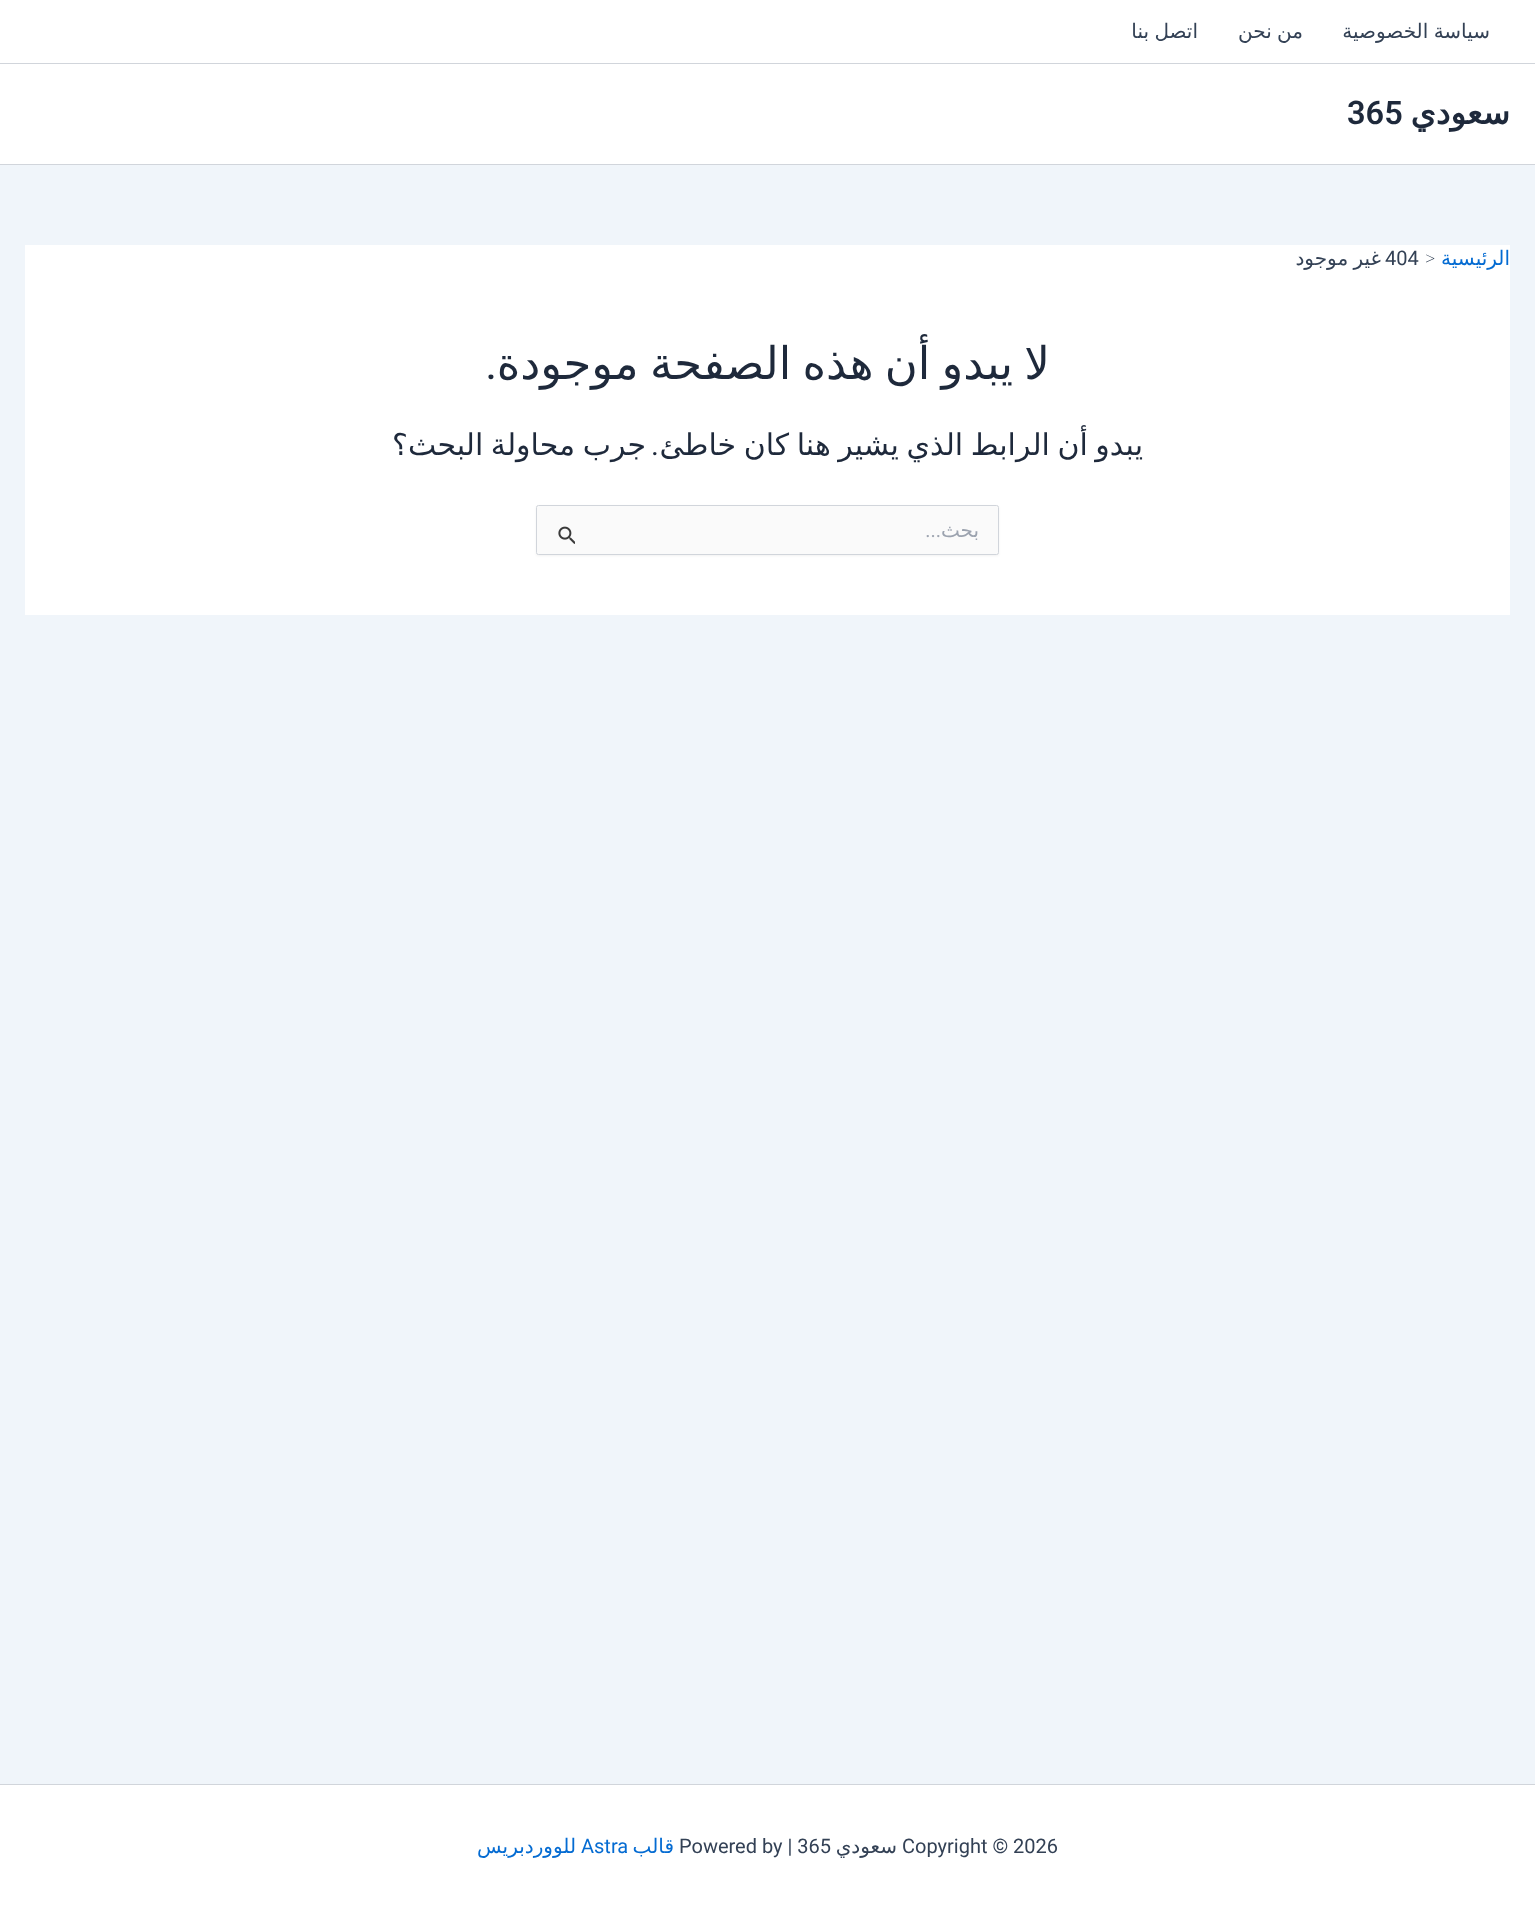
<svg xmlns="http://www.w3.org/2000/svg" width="1535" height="1910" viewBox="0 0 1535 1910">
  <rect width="100%" height="100%" fill="#f0f5fa"/>
  <path d="M0 0h1535v63H0z" fill="#fff"/>
  <path d="M0 63h1535v1H0z" fill="#d1d5db"/>
  <path d="M0 64h1535v100H0z" fill="#fff"/>
  <path d="M0 164h1535v1H0z" fill="#d1d5db"/>
  <path d="M25 245h1485v370H25z" fill="#fff"/>
  <rect x="536" y="506" width="463" height="50" rx="2.5" fill="#0000000d" filter="blur(1px)"/>
  <rect x="536.5" y="505.5" width="462" height="49" rx="2" fill="#fafafa" stroke="#d1d5db"/>
  <image x="558" y="526" width="17" height="18" href="img/1.png"/>
  <path d="M0 1785h1535v125H0z" fill="#fff"/>
  <path d="M0 1784h1535v1H0z" fill="#d1d5db"/>
  <g font-family="DejaVu Sans" font-size="20" direction="rtl" fill="#334155">
    <text x="1490" y="38" word-spacing="-1">سياسة الخصوصية</text>
    <text x="1303" y="38" word-spacing="-1">من نحن</text>
    <text x="1198" y="38" word-spacing="-1">اتصل بنا</text>
  </g>
  <text x="1510" y="124" font-family="DejaVu Sans" font-size="32.5" font-weight="bold" direction="rtl" fill="#1e293b">سعودي</text>
  <text x="1347" y="124" font-family="Roboto" font-size="32.5" font-weight="600" fill="#1e293b">365</text>
  <text x="1510" y="265" font-family="DejaVu Sans" font-size="20" direction="rtl" fill="#046bd2">الرئيسية</text>
  <text x="1425" y="265" font-family="Roboto" font-size="20" font-weight="100" fill="#334155">&gt;</text>
  <text x="1385" y="265" font-family="Roboto" font-size="20" fill="#334155">404</text>
  <text x="1381" y="265" word-spacing="-1" font-family="DejaVu Sans" font-size="20" direction="rtl" fill="#334155">غير موجود</text>
  <text x="1050" y="379" word-spacing="-3" font-family="DejaVu Sans" font-size="45" direction="rtl" fill="#1e293b">لا يبدو أن هذه الصفحة موجودة</text>
  <text x="497" y="379" font-family="Roboto" font-size="45" direction="rtl" fill="#1e293b">.</text>
  <text x="1143" y="455" word-spacing="-2" font-family="DejaVu Sans" font-size="30" direction="rtl" fill="#1e293b">يبدو أن الرابط الذي يشير هنا كان خاطئ</text>
  <text x="659" y="455" font-family="Roboto" font-size="30" direction="rtl" fill="#1e293b">.</text>
  <text x="646" y="455" word-spacing="-2" font-family="DejaVu Sans" font-size="30" direction="rtl" fill="#1e293b">جرب محاولة البحث؟</text>
  <text x="979" y="537" font-family="DejaVu Sans" font-size="20" direction="rtl" fill="#9ca3af">بحث</text>
  <text x="941" y="537" font-family="Roboto" font-size="20" direction="rtl" fill="#9ca3af">...</text>
  <text x="902" y="1853" font-family="Roboto" font-size="20" fill="#334155">Copyright © 2026</text>
  <text x="897" y="1853" font-family="DejaVu Sans" font-size="20" direction="rtl" fill="#334155">سعودي</text>
  <text x="679" y="1853" font-family="Roboto" font-size="20" fill="#334155">Powered by | 365</text>
  <text x="674" y="1853" font-family="DejaVu Sans" font-size="20" direction="rtl" fill="#046bd2">قالب</text>
  <text x="581" y="1853" font-family="Roboto" font-size="20" fill="#046bd2">Astra</text>
  <text x="576" y="1853" font-family="DejaVu Sans" font-size="20" direction="rtl" fill="#046bd2">للووردبريس</text>
</svg>
